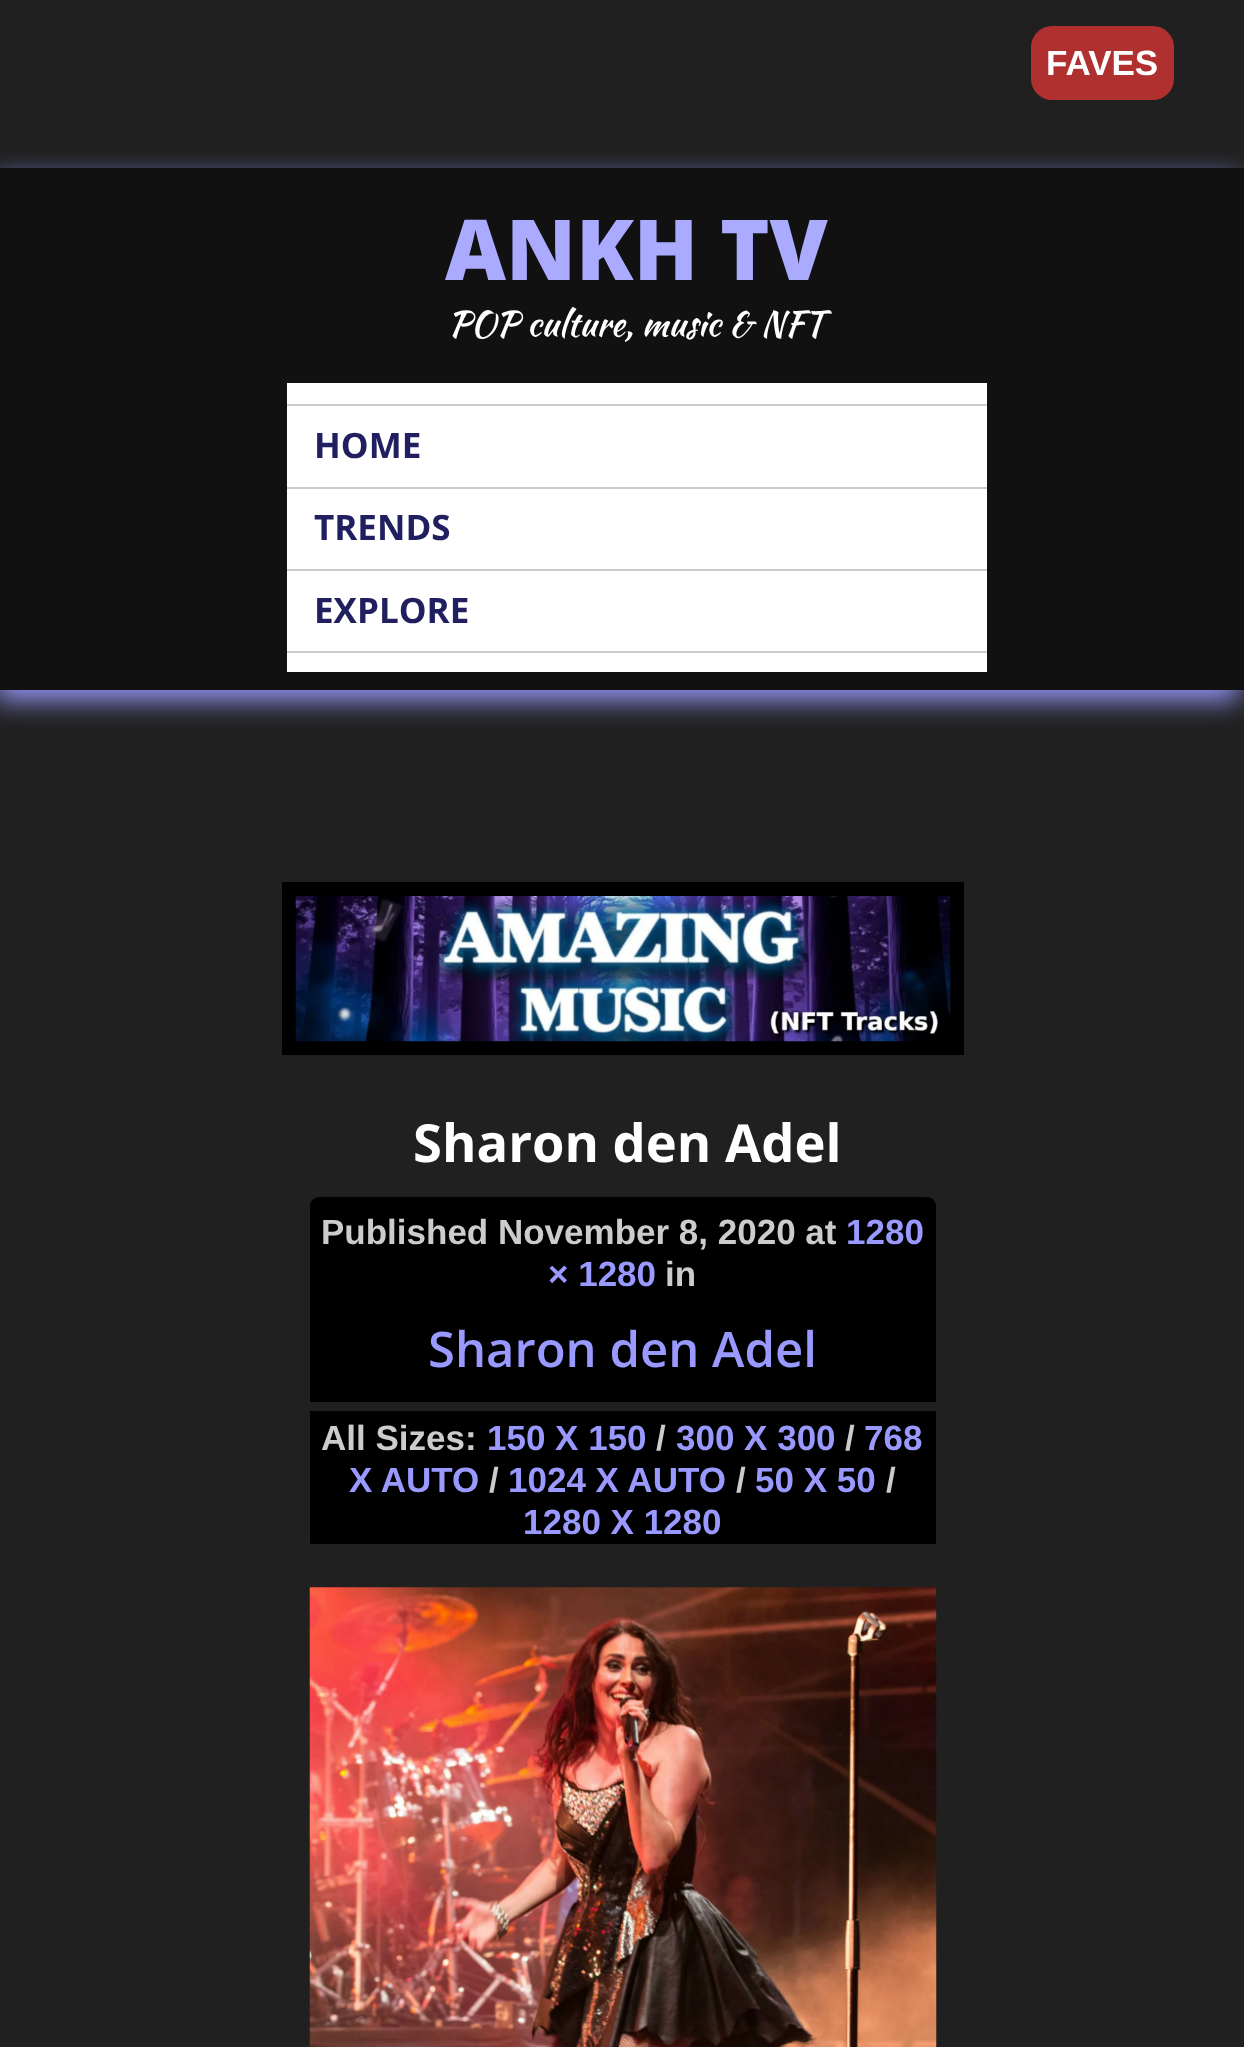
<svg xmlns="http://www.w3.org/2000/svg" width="1244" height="2047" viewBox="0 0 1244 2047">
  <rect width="100%" height="100%" fill="#202020"/>
  <path d="M-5 179h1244v521H-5z" fill="#99f" filter="blur(14px)"/>
  <path d="M0 168h1244v522H0z" fill="#111"/>
  <path d="M287 383h700v289H287z" fill="#fff"/>
  <rect x="1031" y="26" width="143" height="74" rx="21" fill="#b03030"/>
  <path d="M287 404h700v2H287z" fill="#ccc"/>
  <path d="M287 487h700v2H287z" fill="#ccc"/>
  <path d="M287 569h700v2H287z" fill="#ccc"/>
  <path d="M287 651h700v2H287z" fill="#ccc"/>
  <path d="M282 882h682v173H282z" fill="#000"/>
  <image x="295" y="896" width="656" height="146" href="img/1.png"/>
  <rect x="310" y="1197" width="626" height="355" rx="9" fill="#000"/>
  <path d="M310 1402h626v9H310z" fill="#202020"/>
  <path d="M310 1544h626v8H310z" fill="#202020"/>
  <image x="309" y="1587" width="628" height="460" href="img/2.png"/>
  <text x="1046" y="75" font-family="Liberation Sans" font-size="35" font-weight="bold" fill="#fff">FAVES</text>
  <g font-family="Open Sans" font-size="35" font-weight="bold" fill="#202060">
    <text x="314" y="458">HOME</text>
    <text x="314" y="540">TRENDS</text>
    <text x="314" y="623">EXPLORE</text>
  </g>
  <text x="445" y="280" font-family="Open Sans" font-size="84" font-weight="800" fill="#aaf">ANKH TV</text>
  <text x="448" y="336" font-family="Kaushan Script" font-size="35" fill="#fff">POP culture, music &amp; NFT</text>
  <text x="413" y="1162" font-family="Open Sans" font-size="52.5" font-weight="bold" fill="#fff">Sharon den Adel</text>
  <text x="321" y="1244" font-family="Liberation Sans" font-size="35" font-weight="bold" fill="#ccc">Published November 8, 2020 at</text>
  <g font-family="Liberation Sans" font-size="35" font-weight="bold" fill="#99f">
    <text x="846" y="1244">1280</text>
    <text x="548" y="1286">× 1280</text>
  </g>
  <text x="665" y="1286" font-family="Liberation Sans" font-size="35" font-weight="bold" fill="#ccc">in</text>
  <text x="428" y="1367" font-family="Open Sans" font-size="49" font-weight="600" fill="#99f">Sharon den Adel</text>
  <text x="321" y="1450" font-family="Liberation Sans" font-size="35" font-weight="bold" fill="#ccc">All Sizes:</text>
  <text x="487" y="1450" font-family="Liberation Sans" font-size="35" font-weight="bold" fill="#99f">150 X 150</text>
  <text x="656" y="1450" font-family="Liberation Sans" font-size="35" font-weight="bold" fill="#ccc">/</text>
  <text x="676" y="1450" font-family="Liberation Sans" font-size="35" font-weight="bold" fill="#99f">300 X 300</text>
  <text x="845" y="1450" font-family="Liberation Sans" font-size="35" font-weight="bold" fill="#ccc">/</text>
  <g font-family="Liberation Sans" font-size="35" font-weight="bold" fill="#99f">
    <text x="864" y="1450">768</text>
    <text x="349" y="1492">X AUTO</text>
  </g>
  <text x="489" y="1492" font-family="Liberation Sans" font-size="35" font-weight="bold" fill="#ccc">/</text>
  <text x="508" y="1492" font-family="Liberation Sans" font-size="35" font-weight="bold" fill="#99f">1024 X AUTO</text>
  <text x="736" y="1492" font-family="Liberation Sans" font-size="35" font-weight="bold" fill="#ccc">/</text>
  <text x="755" y="1492" font-family="Liberation Sans" font-size="35" font-weight="bold" fill="#99f">50 X 50</text>
  <text x="886" y="1492" font-family="Liberation Sans" font-size="35" font-weight="bold" fill="#ccc">/</text>
  <text x="523" y="1534" font-family="Liberation Sans" font-size="35" font-weight="bold" fill="#99f">1280 X 1280</text>
</svg>
